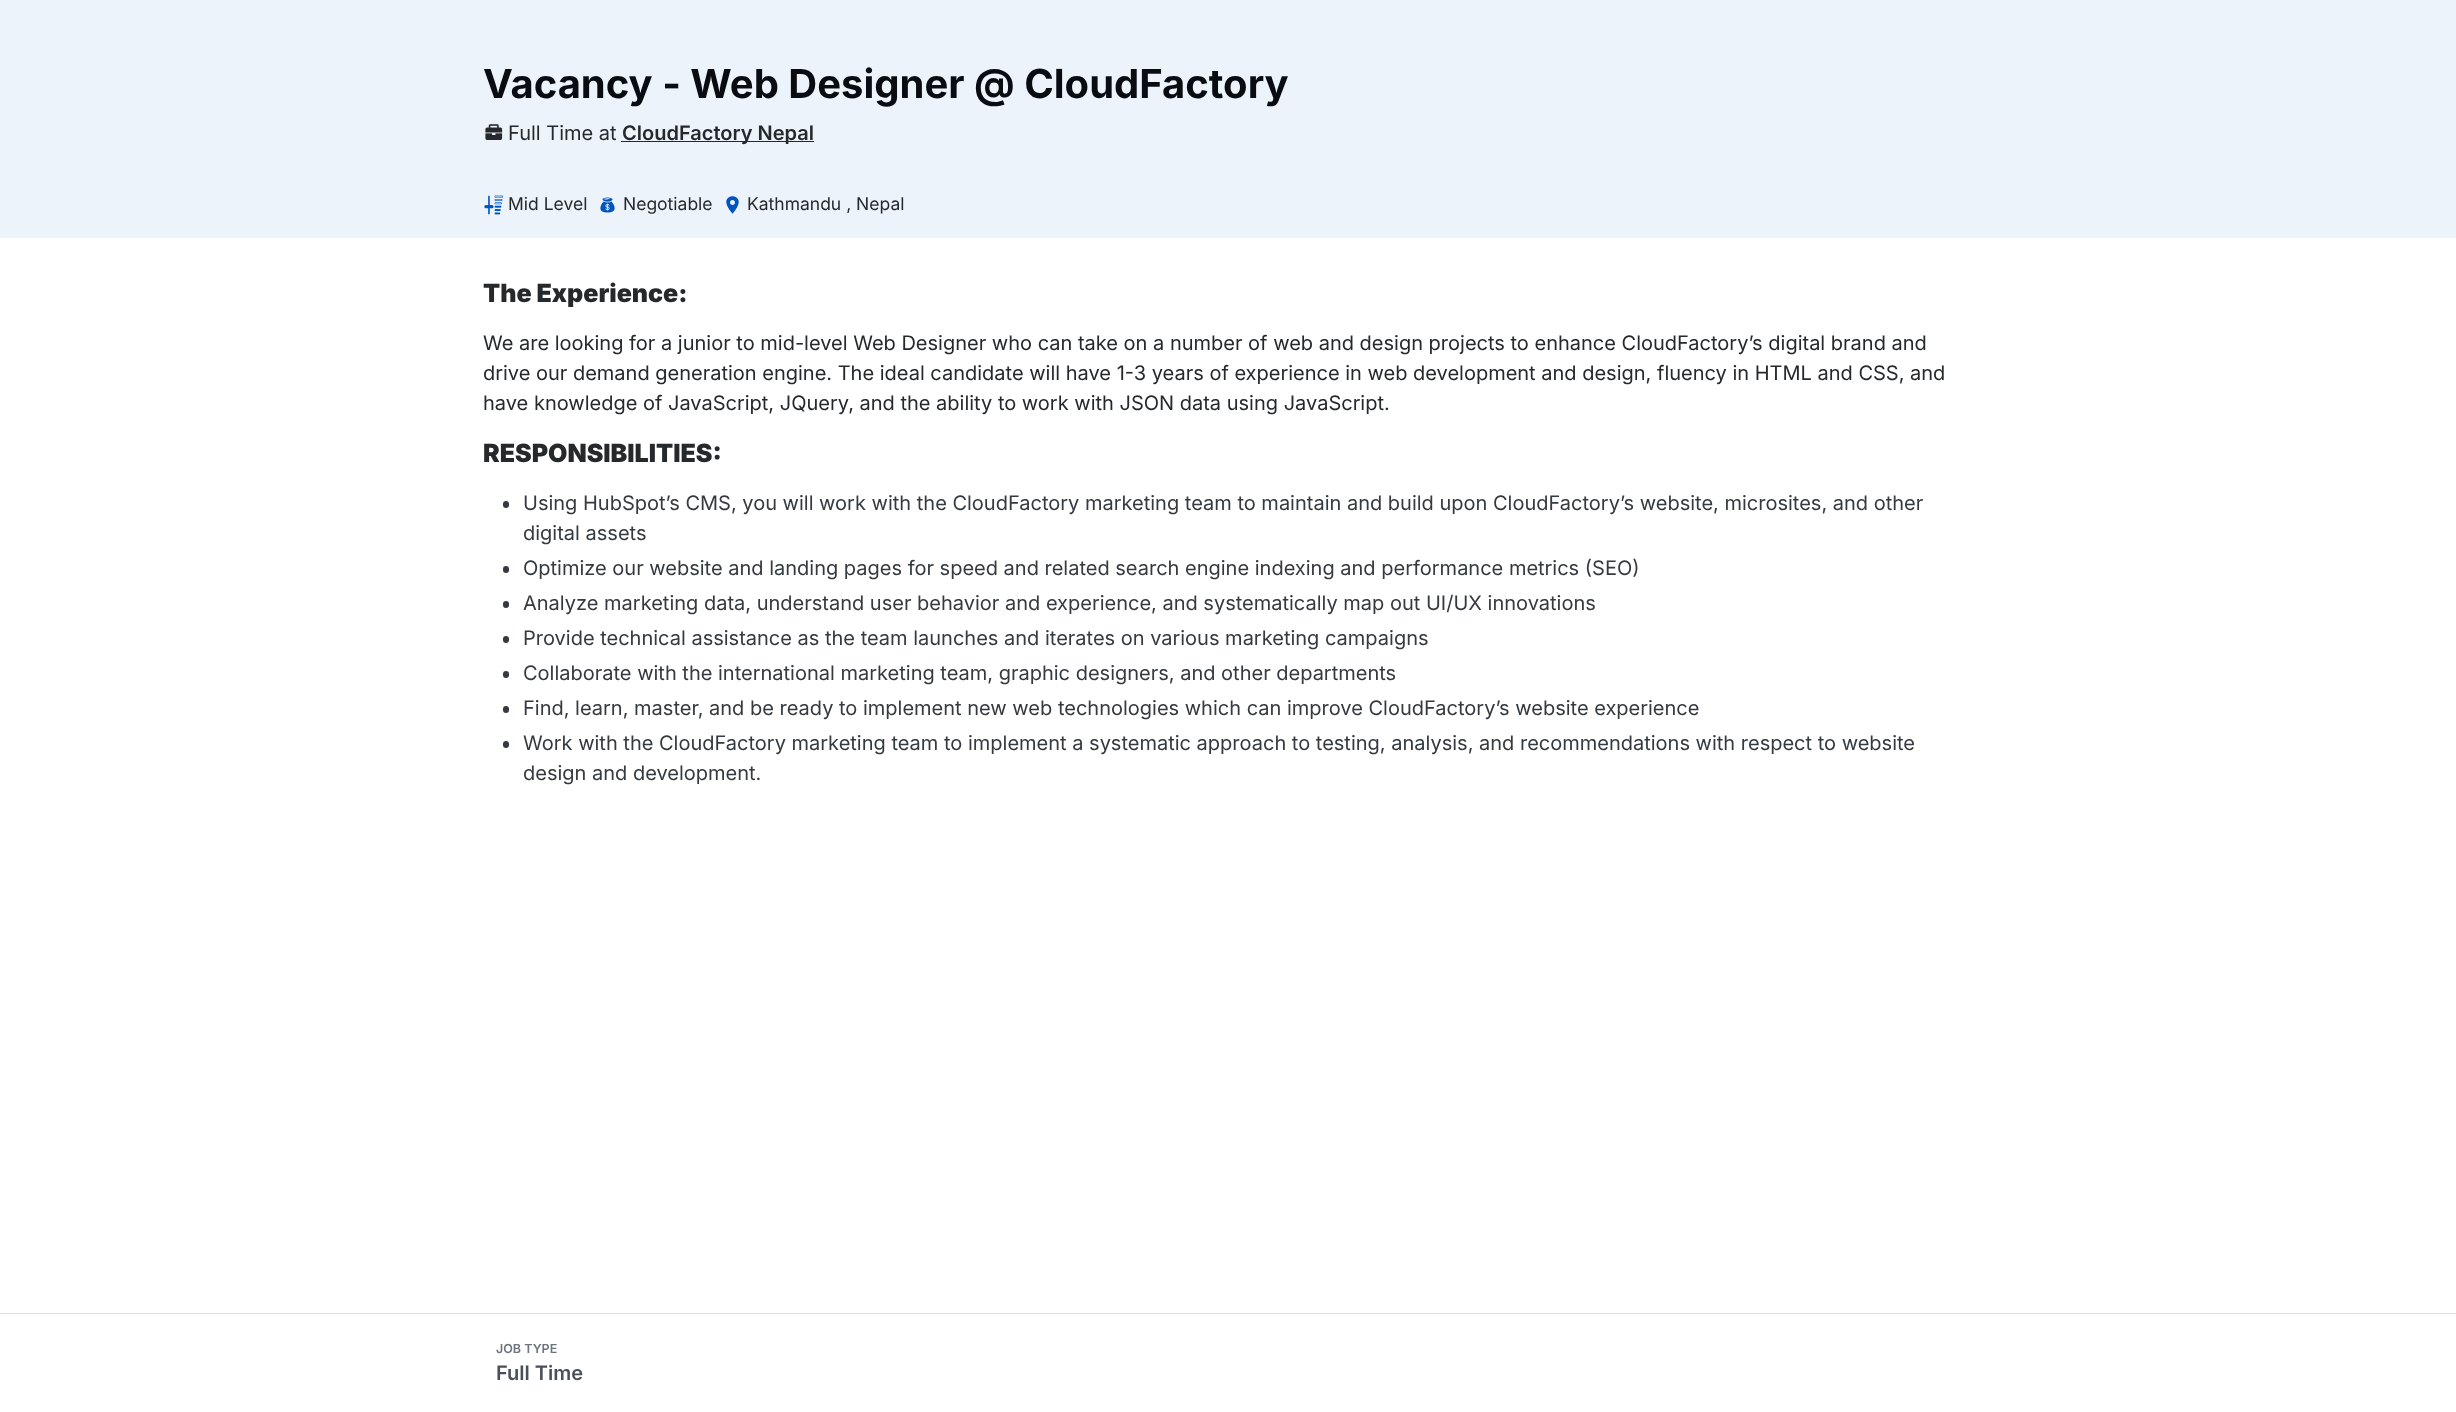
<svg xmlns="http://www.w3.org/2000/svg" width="2456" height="1412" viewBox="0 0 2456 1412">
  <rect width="100%" height="100%" fill="#fff"/>
  <path d="M0 0h2456v238H0z" fill="#edf3fa"/>
  <image x="485" y="124" width="18" height="16" href="img/1.png"/>
  <path d="M621 141h193v1H621z" fill="#26292c"/>
  <image x="484" y="195" width="20" height="20" href="img/2.png"/>
  <image x="600" y="197" width="15" height="16" href="img/3.png"/>
  <image x="726" y="196" width="13" height="18" href="img/4.png"/>
  <rect x="503" y="501" width="6" height="7" rx="3" fill="#343a40"/>
  <rect x="503" y="566" width="6" height="7" rx="3" fill="#343a40"/>
  <rect x="503" y="601" width="6" height="7" rx="3" fill="#343a40"/>
  <rect x="503" y="636" width="6" height="7" rx="3" fill="#343a40"/>
  <rect x="503" y="671" width="6" height="7" rx="3" fill="#343a40"/>
  <rect x="503" y="706" width="6" height="7" rx="3" fill="#343a40"/>
  <rect x="503" y="741" width="6" height="7" rx="3" fill="#343a40"/>
  <path d="M0 1313h2456v1H0z" fill="#dee2e6"/>
  <text x="483" y="98" font-family="Inter" font-size="40" font-weight="bold" fill="#090d12">Vacancy - Web Designer @ CloudFactory</text>
  <text x="508" y="140" font-family="Inter" font-size="20" fill="#26292c">Full Time at</text>
  <text x="622" y="140" font-family="Inter" font-size="20" font-weight="600" fill="#26292c">CloudFactory Nepal</text>
  <g font-family="Inter" font-size="17.5" fill="#26292c">
    <text x="508" y="210">Mid Level</text>
    <text x="623" y="210">Negotiable</text>
    <text x="747" y="210">Kathmandu , Nepal</text>
  </g>
  <text x="483" y="302" font-family="Inter" font-size="25" font-weight="900" fill="#26292c">The Experience:</text>
  <g font-family="Inter" font-size="20" fill="#26292c">
    <text x="483" y="350">We are looking for a junior to mid-level Web Designer who can take on a number of web and design projects to enhance CloudFactory’s digital brand and</text>
    <text x="483" y="380">drive our demand generation engine. The ideal candidate will have 1-3 years of experience in web development and design, fluency in HTML and CSS, and</text>
    <text x="483" y="410">have knowledge of JavaScript, JQuery, and the ability to work with JSON data using JavaScript.</text>
  </g>
  <text x="483" y="462" font-family="Inter" font-size="25" font-weight="900" fill="#26292c">RESPONSIBILITIES:</text>
  <g font-family="Inter" font-size="20" fill="#343a40">
    <text x="523" y="510">Using HubSpot’s CMS, you will work with the CloudFactory marketing team to maintain and build upon CloudFactory’s website, microsites, and other</text>
    <text x="523" y="540">digital assets</text>
    <text x="523" y="575">Optimize our website and landing pages for speed and related search engine indexing and performance metrics (SEO)</text>
    <text x="523" y="610">Analyze marketing data, understand user behavior and experience, and systematically map out UI/UX innovations</text>
    <text x="523" y="645">Provide technical assistance as the team launches and iterates on various marketing campaigns</text>
    <text x="523" y="680">Collaborate with the international marketing team, graphic designers, and other departments</text>
    <text x="523" y="715">Find, learn, master, and be ready to implement new web technologies which can improve CloudFactory’s website experience</text>
    <text x="523" y="750">Work with the CloudFactory marketing team to implement a systematic approach to testing, analysis, and recommendations with respect to website</text>
    <text x="523" y="780">design and development.</text>
  </g>
  <text x="496" y="1353" font-family="Inter" font-size="12.5" font-weight="600" fill="#6c757d">JOB TYPE</text>
  <text x="496" y="1380" font-family="Inter" font-size="20" font-weight="600" fill="#495057">Full Time</text>
</svg>
